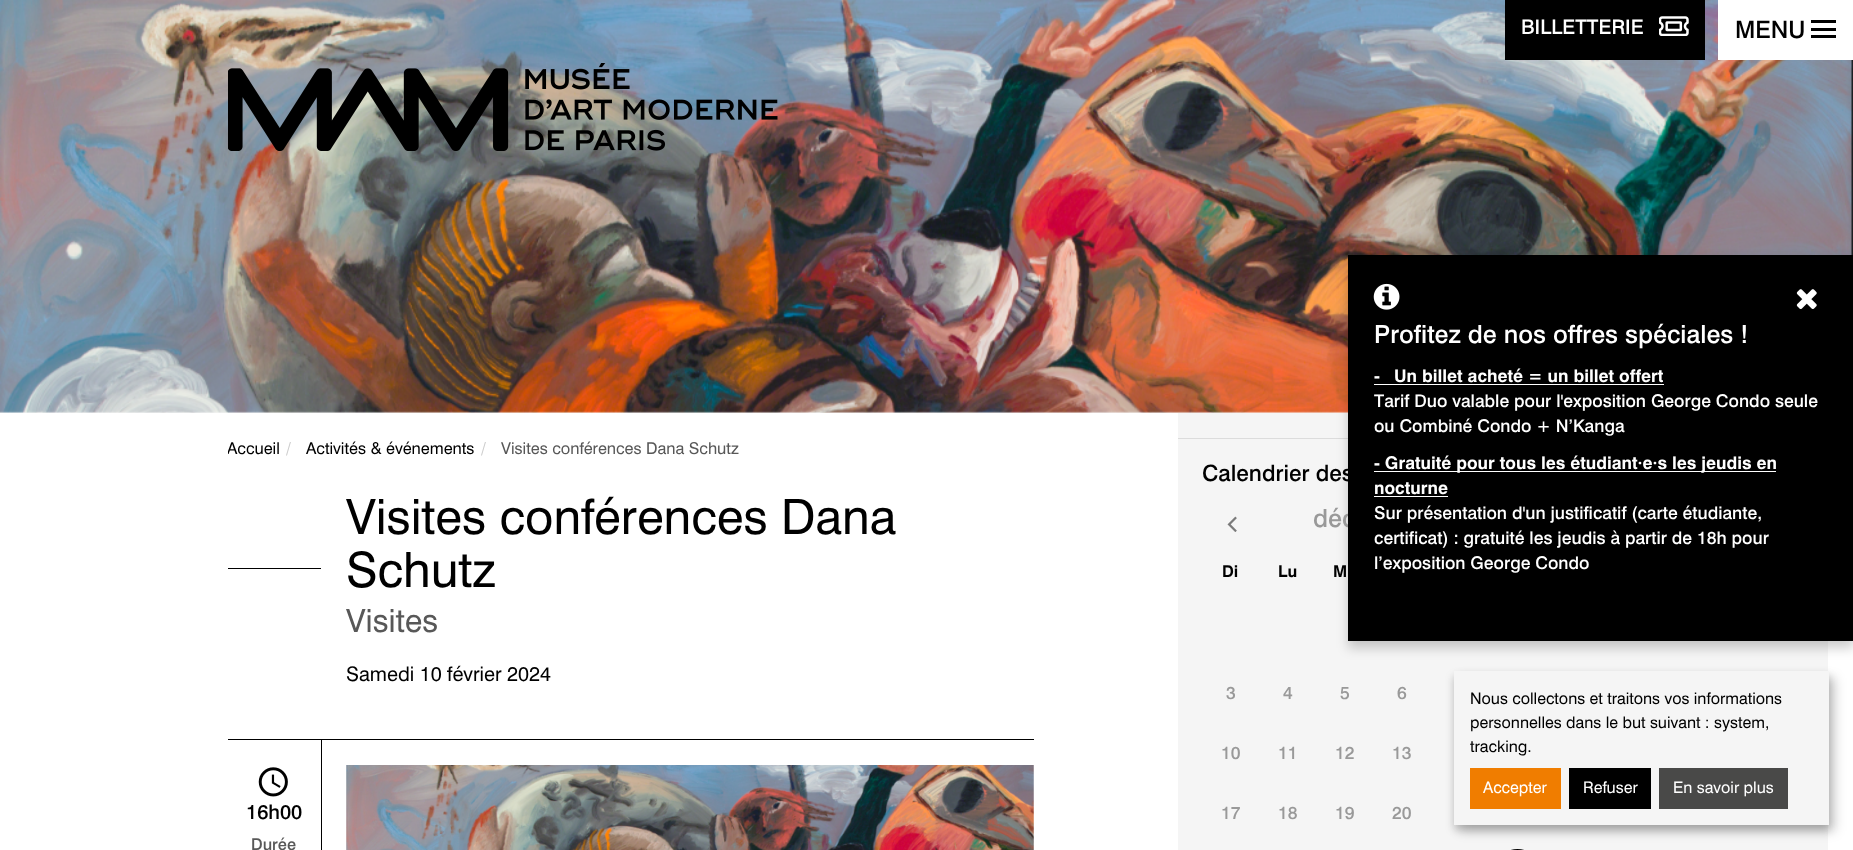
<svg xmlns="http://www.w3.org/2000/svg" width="1853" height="850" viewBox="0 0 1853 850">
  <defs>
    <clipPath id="clip1"><path d="M228 413h806v82H228z"/></clipPath>
  </defs>
  <rect width="100%" height="100%" fill="#fff"/>
  <path d="M0 411h1348v2H0z" fill="#f5f5f5"/>
  <image x="0" y="0" width="1853" height="413" href="img/2.png"/>
  <path d="M1505 0h200v60H1505z" fill="#000"/>
  <image x="1659" y="16" width="30" height="20" href="img/1.png"/>
  <path d="M1718 0h135v60H1718z" fill="#fff"/>
  <path d="M1811 20h25v3H1811z" fill="#000"/>
  <path d="M1811 28h25v3H1811z" fill="#000"/>
  <path d="M1811 35h25v3H1811z" fill="#000"/>
  <image x="228" y="63" width="550" height="88" href="img/3.png"/>
  <path d="M1178 413h650v437H1178z" fill="#f5f5f5"/>
  <path d="M228 568h93v1H228z" fill="#000"/>
  <path d="M228 739h806v1H228z" fill="#000"/>
  <image x="258" y="767" width="30" height="30" href="img/4.png"/>
  <path d="M321 740h1v110H321z" fill="#000"/>
  <image x="346" y="765" width="688" height="85" href="img/5.png"/>
  <path d="M1178 438h170v1H1178z" fill="#dcdcdc"/>
  <ellipse cx="1517.5" cy="875" rx="25" ry="26" fill="#000"/>
  <image x="1227" y="516" width="10" height="16" href="img/6.png"/>
  <path d="M1348 261h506v387H1348z" fill="#00000033" filter="blur(6px)"/>
  <path d="M1460 678h375v153H1460z" fill="#00000030" filter="blur(6px)"/>
  <path d="M1454 676h375v154H1454z" fill="#00000033" filter="blur(4px)"/>
  <path d="M1454 671h375v154H1454z" fill="#f5f5f5"/>
  <path d="M1470 768h91v41H1470z" fill="#f07d00"/>
  <path d="M1569 768h82v41H1569z" fill="#000"/>
  <path d="M1659 768h129v41H1659z" fill="#494948"/>
  <text x="1521" y="34" font-family="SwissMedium" font-size="20" font-weight="500" fill="#fff">BILLETTERIE</text>
  <text x="1735" y="38" font-family="SwissMedium" font-size="24" font-weight="500" fill="#000">MENU</text>
  <g clip-path="url(#clip1)">
    <text x="227" y="454" font-family="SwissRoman" font-size="16.25" fill="#000">Accueil</text>
  </g>
  <text x="286" y="454" font-family="SwissRoman" font-size="16.25" fill="#ccc">/</text>
  <text x="306" y="454" font-family="SwissRoman" font-size="16.25" fill="#000">Activités &amp; événements</text>
  <text x="481" y="454" font-family="SwissRoman" font-size="16.25" fill="#ccc">/</text>
  <text x="501" y="454" font-family="SwissRoman" font-size="16.25" fill="#585858">Visites conférences Dana Schutz</text>
  <g font-family="SwissRoman" font-size="48.75" fill="#000">
    <text x="346" y="534">Visites conférences Dana</text>
    <text x="346" y="587">Schutz</text>
  </g>
  <text x="346" y="632" font-family="SwissRoman" font-size="32" fill="#585858">Visites</text>
  <text x="346" y="681" font-family="SwissRoman" font-size="20" fill="#000">Samedi 10 février 2024</text>
  <text x="246" y="819" font-family="SwissMedium" font-size="20" font-weight="500" fill="#000">16h00</text>
  <text x="251" y="850" font-family="SwissMedium" font-size="16.25" font-weight="500" fill="#585858">Durée</text>
  <text x="1202" y="481" font-family="SwissMedium" font-size="22.5" font-weight="500" fill="#000">Calendrier des</text>
  <text x="1313" y="527" font-family="SwissMedium" font-size="25" font-weight="500" fill="#999">déc</text>
  <g font-family="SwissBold" font-size="16.25" font-weight="bold" fill="#000">
    <text x="1222" y="577">Di</text>
    <text x="1278" y="577">Lu</text>
    <text x="1333" y="577">M</text>
  </g>
  <g font-family="SwissMedium" font-size="17.5" font-weight="500" fill="#999">
    <text x="1226" y="699">3</text>
    <text x="1283" y="699">4</text>
    <text x="1340" y="699">5</text>
    <text x="1397" y="699">6</text>
    <text x="1221" y="759">10</text>
    <text x="1278" y="759">11</text>
    <text x="1335" y="759">12</text>
    <text x="1392" y="759">13</text>
    <text x="1221" y="819">17</text>
    <text x="1278" y="819">18</text>
    <text x="1335" y="819">19</text>
    <text x="1392" y="819">20</text>
  </g>
  <path d="M1348 255h505v386H1348z" fill="#000"/>
  <image x="1796" y="289" width="21" height="20" href="img/7.png"/>
  <image x="1373" y="283" width="27" height="27" href="img/8.png"/>
  <text x="1374" y="343" font-family="SwissMedium" font-size="25" font-weight="500" fill="#fff">Profitez de nos offres spéciales !</text>
  <text x="1374" y="382" font-family="SwissBold" font-size="17.5" font-weight="bold" fill="#fff">-</text>
  <text x="1394" y="382" font-family="SwissBold" font-size="17.5" font-weight="bold" fill="#fff">Un billet acheté = un billet offert</text>
  <path d="M1374 384h290v1H1374z" fill="#fff"/>
  <g font-family="SwissMedium" font-size="17.5" font-weight="500" fill="#fff">
    <text x="1374" y="407">Tarif Duo valable pour l'exposition George Condo seule</text>
    <text x="1374" y="432">ou Combiné Condo + N’Kanga</text>
  </g>
  <path d="M1374 471h402v1H1374z" fill="#fff"/>
  <g font-family="SwissBold" font-size="17.5" font-weight="bold" fill="#fff">
    <text x="1374" y="469">- Gratuité pour tous les étudiant·e·s les jeudis en</text>
    <text x="1374" y="494">nocturne</text>
  </g>
  <path d="M1374 496h74v1H1374z" fill="#fff"/>
  <g font-family="SwissMedium" font-size="17.5" font-weight="500" fill="#fff">
    <text x="1374" y="519">Sur présentation d'un justificatif (carte étudiante,</text>
    <text x="1374" y="544">certificat) : gratuité les jeudis à partir de 18h pour</text>
    <text x="1374" y="569">l’exposition George Condo</text>
  </g>
  <g font-family="SwissRoman" font-size="16" fill="#000">
    <text x="1470" y="704">Nous collectons et traitons vos informations</text>
    <text x="1470" y="728">personnelles dans le but suivant : system,</text>
    <text x="1470" y="752">tracking.</text>
  </g>
  <g font-family="SwissRoman" font-size="16" fill="#fff">
    <text x="1483" y="793">Accepter</text>
    <text x="1583" y="793">Refuser</text>
    <text x="1673" y="793">En savoir plus</text>
  </g>
</svg>
